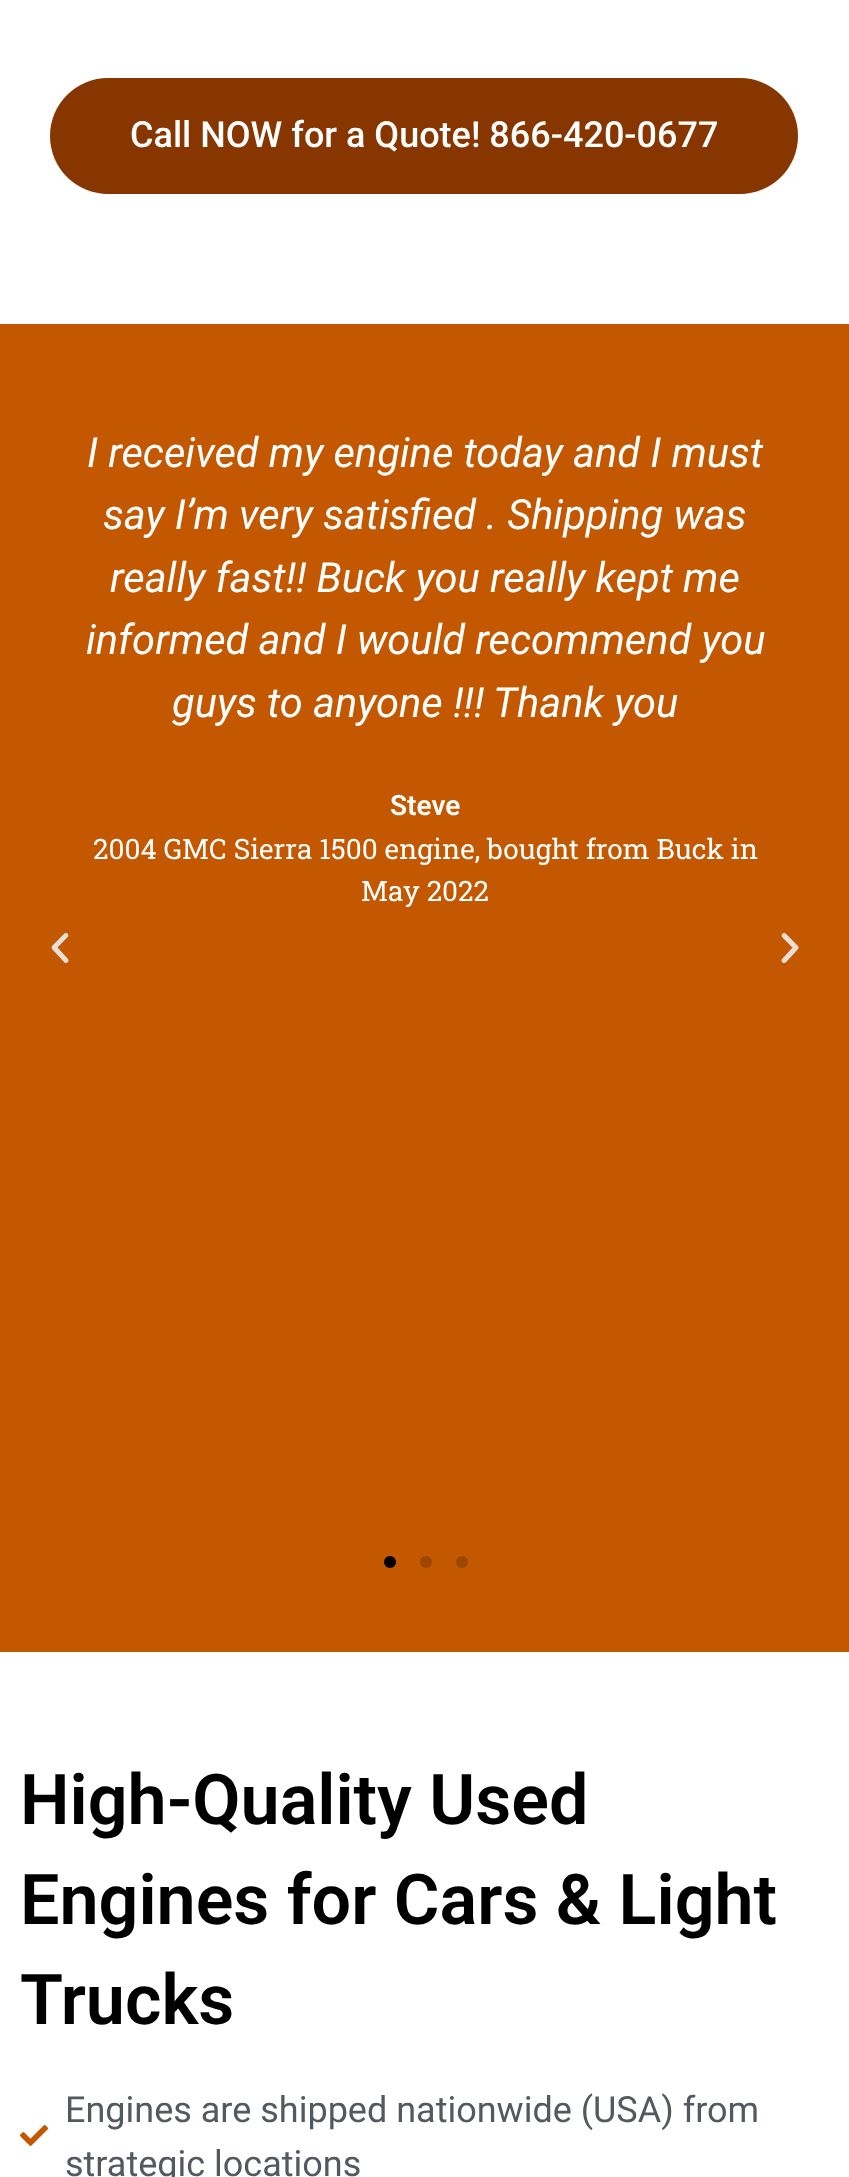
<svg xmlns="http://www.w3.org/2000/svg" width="849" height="2177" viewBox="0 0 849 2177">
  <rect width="100%" height="100%" fill="#fff"/>
  <rect x="50" y="78" width="748" height="116" rx="58" fill="#873600"/>
  <path d="M0 324h849v1328H0z" fill="#c35800"/>
  <image x="51" y="933" width="18" height="30" href="img/1.png"/>
  <image x="781" y="933" width="18" height="30" href="img/2.png"/>
  <circle cx="390" cy="1562" r="6" fill="#000"/>
  <circle cx="426" cy="1562" r="6" fill="#9c4600"/>
  <circle cx="462" cy="1562" r="6" fill="#9c4600"/>
  <image x="20" y="2125" width="28" height="21" href="img/3.png"/>
  <text x="130" y="147" font-family="Roboto" font-size="36" font-weight="500" fill="#fff">Call NOW for a Quote! 866-420-0677</text>
  <g font-family="Roboto" font-size="41.6" font-style="italic" fill="#fff">
    <text x="87" y="467">I received my engine today and I must</text>
    <text x="103" y="529">say I’m very satisfied . Shipping was</text>
    <text x="110" y="592">really fast!! Buck you really kept me</text>
    <text x="86" y="654">informed and I would recommend you</text>
    <text x="172" y="717">guys to anyone !!!</text>
    <text x="493" y="717">Thank you</text>
  </g>
  <text x="390" y="815" font-family="Roboto" font-size="28" font-weight="600" fill="#fff">Steve</text>
  <g font-family="Roboto Slab" font-size="28" fill="#fff">
    <text x="93" y="859">2004 GMC Sierra 1500 engine, bought from Buck in</text>
    <text x="361" y="901">May 2022</text>
  </g>
  <g font-family="Roboto" font-size="70" font-weight="600" fill="#000">
    <text x="20" y="1824">High-Quality Used</text>
    <text x="20" y="1924">Engines for Cars &amp; Light</text>
    <text x="20" y="2024">Trucks</text>
  </g>
  <g font-family="Roboto" font-size="36" fill="#54595f">
    <text x="65" y="2122">Engines are shipped nationwide (USA) from</text>
    <text x="65" y="2176">strategic locations</text>
  </g>
</svg>
